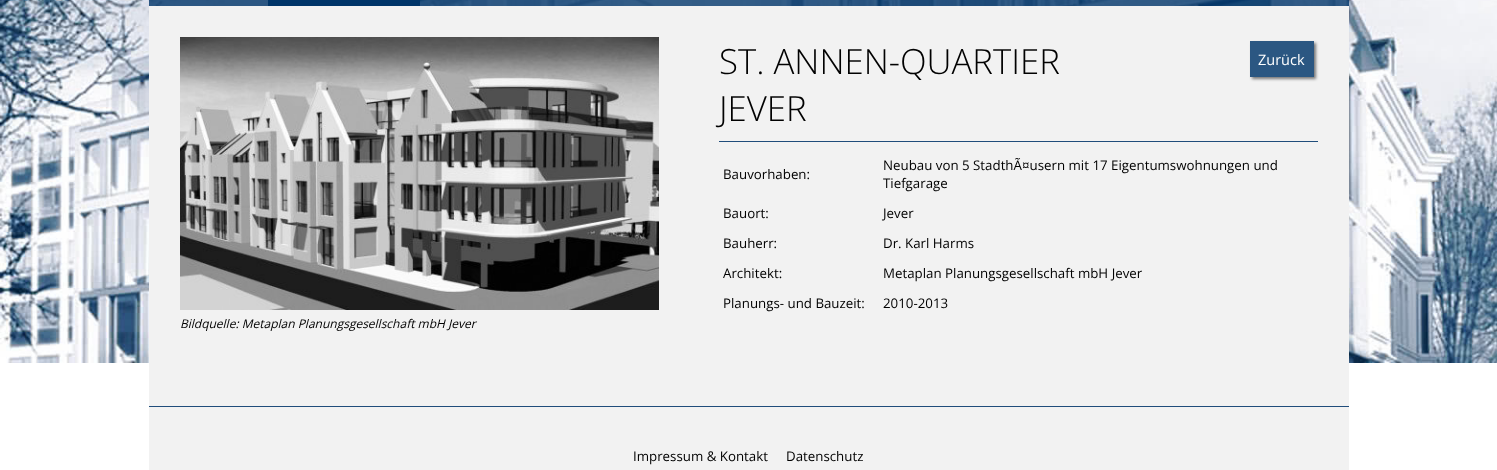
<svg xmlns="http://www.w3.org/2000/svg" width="1497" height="470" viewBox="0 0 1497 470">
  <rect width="100%" height="100%" fill="#fff"/>
  <image x="0" y="0" width="1497" height="363" href="img/1.png"/>
  <path d="M149 0h1200v6H149z" fill="#003569cc"/>
  <path d="M268 0h152v6H268z" fill="#003569"/>
  <path d="M149 6h1200v400H149z" fill="#f2f2f2"/>
  <path d="M719 141h599v1H719z" fill="#204d7b"/>
  <path d="M1252 43h64v36H1252z" fill="#00000080" filter="blur(1.5px)"/>
  <path d="M1250 41h64v36H1250z" fill="#2b5782"/>
  <image x="180" y="37" width="479" height="273" href="img/2.png"/>
  <path d="M149 407h1200v63H149z" fill="#f2f2f2"/>
  <path d="M149 406h1200v1H149z" fill="#204d7b"/>
  <g font-family="Open Sans" font-size="34.75" font-weight="300" fill="#010101">
    <text x="719" y="74">ST. ANNEN-QUARTIER</text>
    <text x="719" y="121">JEVER</text>
  </g>
  <text x="1258" y="65" font-family="Open Sans" font-size="14.5" fill="#fff">Zurück</text>
  <g font-family="Open Sans" font-size="13.3" fill="#010101">
    <text x="723" y="179">Bauvorhaben:</text>
    <text x="883" y="170">Neubau von 5 StadthÃ¤usern mit 17 Eigentumswohnungen und</text>
    <text x="883" y="188">Tiefgarage</text>
    <text x="723" y="218">Bauort:</text>
    <text x="883" y="218">Jever</text>
    <text x="723" y="248">Bauherr:</text>
    <text x="883" y="248">Dr. Karl Harms</text>
    <text x="723" y="278">Architekt:</text>
    <text x="883" y="278">Metaplan Planungsgesellschaft mbH Jever</text>
    <text x="723" y="308">Planungs- und Bauzeit:</text>
    <text x="883" y="308">2010-2013</text>
  </g>
  <text x="180" y="328" font-family="Open Sans" font-size="12" font-style="italic" fill="#010101">Bildquelle: Metaplan Planungsgesellschaft mbH Jever</text>
  <g font-family="Open Sans" font-size="13.3" fill="#010101">
    <text x="633" y="461">Impressum &amp; Kontakt</text>
    <text x="786" y="461">Datenschutz</text>
  </g>
</svg>
